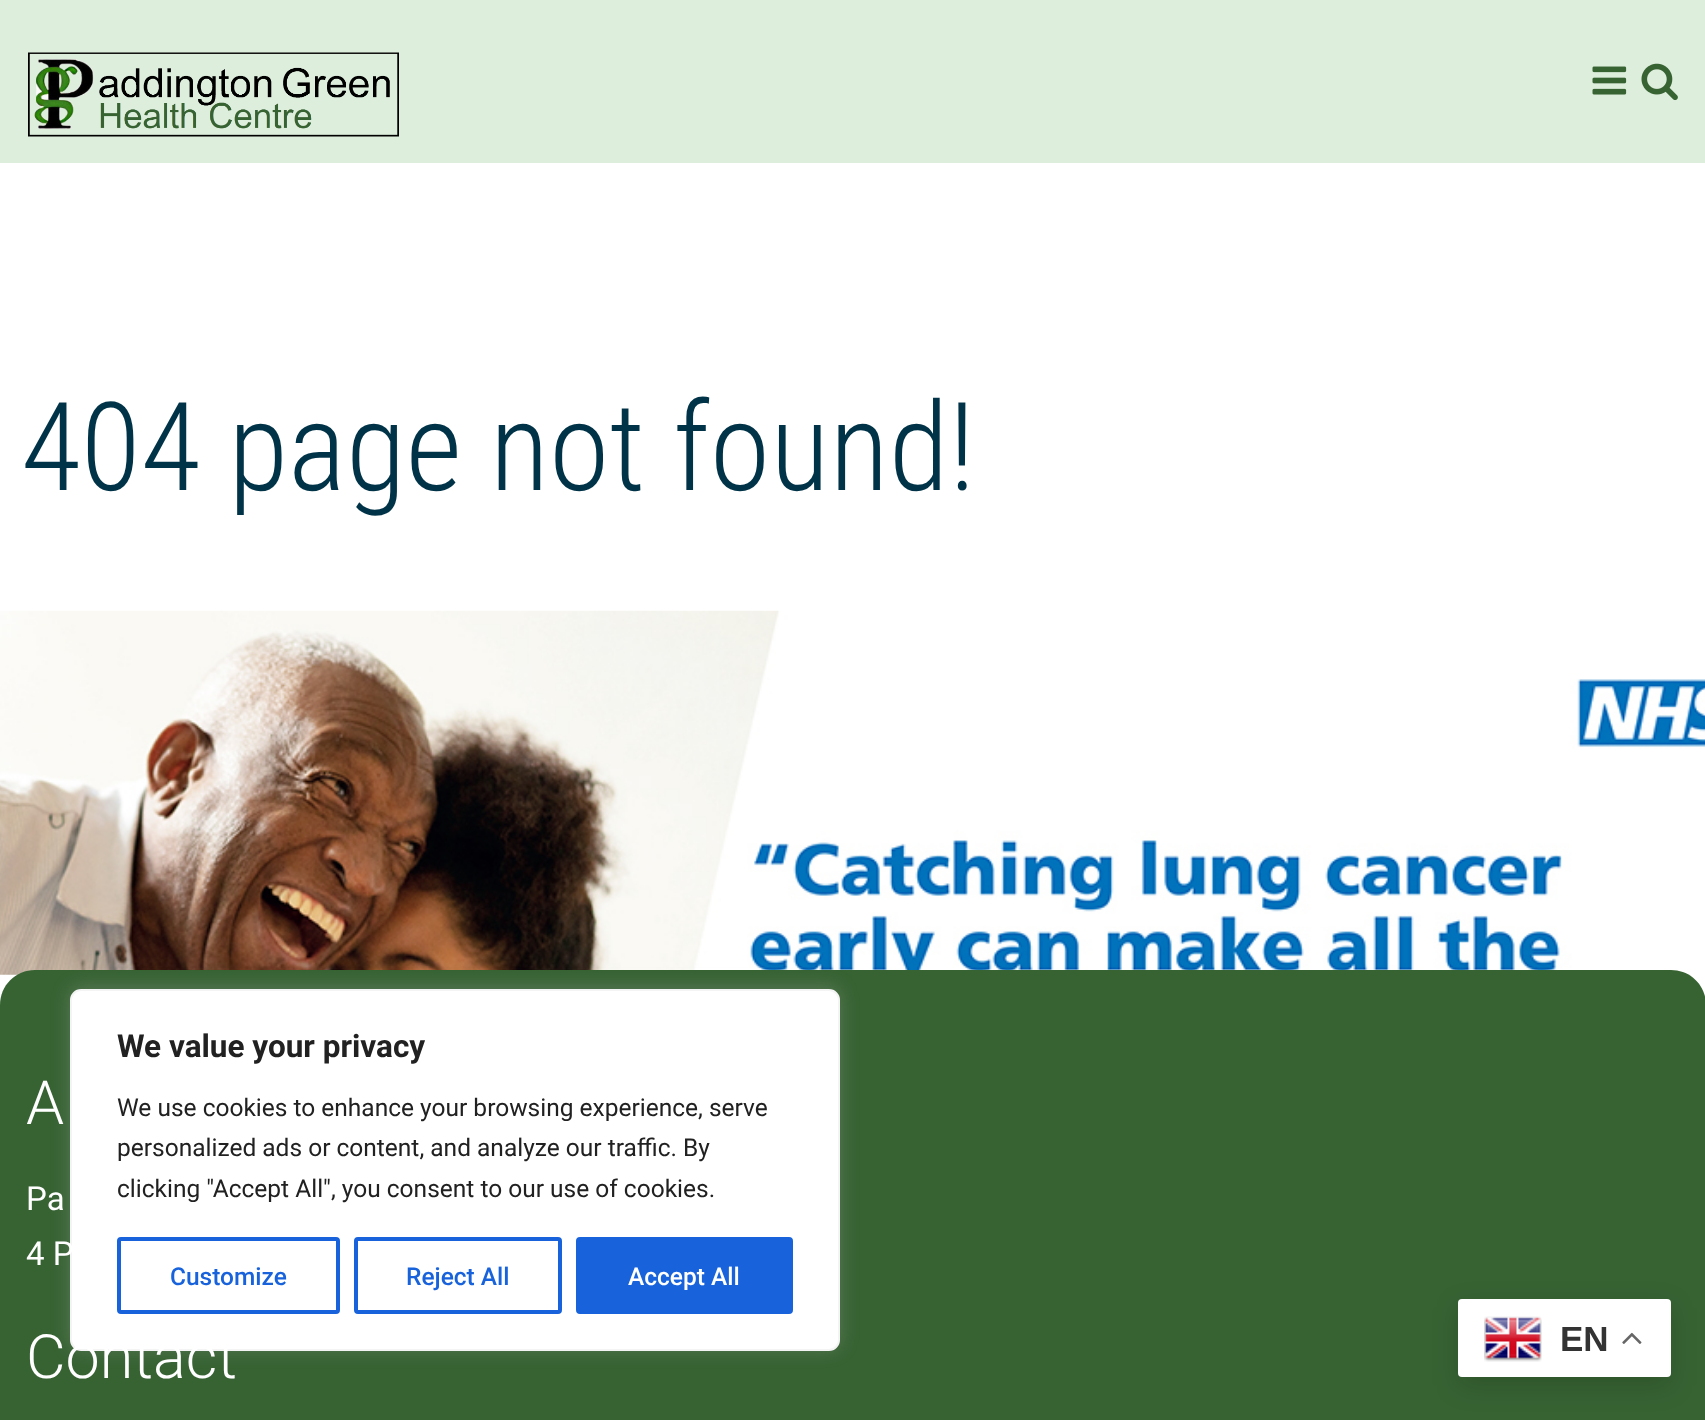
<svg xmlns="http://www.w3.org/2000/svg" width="1705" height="1420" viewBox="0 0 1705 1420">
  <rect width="100%" height="100%" fill="#fff"/>
  <path d="M0 0h1705v163H0z" fill="#deeedd"/>
  <image x="28" y="52" width="371" height="85" href="img/1.png"/>
  <image x="1592" y="66" width="35" height="29" href="img/2.png"/>
  <image x="1641" y="63" width="37" height="38" href="img/3.png"/>
  <image x="0" y="610" width="1705" height="365" href="img/4.png"/>
  <path d="M35 970H1671C1690.5 970 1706 985.5 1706 1005V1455H0V1005C0 985.5 15.5 970 35 970Z" fill="#376333"/>
  <rect x="70" y="987" width="770" height="362" rx="11" fill="#acabab4d" filter="blur(9px)"/>
  <rect x="71" y="990" width="768" height="360" rx="10" fill="#fff" stroke="#f4f4f4" stroke-width="2"/>
  <rect x="119" y="1239" width="219" height="73" rx="2" fill="none" stroke="#1863dc" stroke-width="4"/>
  <rect x="356" y="1239" width="204" height="73" rx="2" fill="none" stroke="#1863dc" stroke-width="4"/>
  <rect x="578" y="1239" width="213" height="73" rx="2" fill="#1863dc" stroke="#1863dc" stroke-width="4"/>
  <rect x="1458" y="1307" width="213" height="79" rx="4" fill="#00000026" filter="blur(13px)"/>
  <rect x="1458" y="1299" width="213" height="78" rx="4" fill="#fff"/>
  <image x="1484" y="1316" width="58" height="46" href="img/5.png"/>
  <image x="1622" y="1332" width="20" height="12" href="img/6.png"/>
  <text x="21" y="490" font-family="Roboto Condensed" font-size="123" font-weight="300" fill="#003347">404 page not found!</text>
  <text x="26" y="1124" font-family="Roboto" font-size="61" font-weight="300" fill="#fff">A</text>
  <g font-family="Roboto" font-size="33" fill="#fff">
    <text x="26" y="1210">Pa</text>
    <text x="26" y="1265">4 P</text>
  </g>
  <text x="26" y="1378" font-family="Roboto" font-size="61" font-weight="300" fill="#fff">Contact</text>
  <text x="117" y="1057" font-family="Roboto" font-size="31.5" font-weight="bold" fill="#212121">We value your privacy</text>
  <g font-family="Roboto" font-size="24.5" fill="#212121">
    <text x="117" y="1116">We use cookies to enhance your browsing experience, serve</text>
    <text x="117" y="1156">personalized ads or content, and analyze our traffic. By</text>
    <text x="117" y="1197">clicking "Accept All", you consent to our use of cookies.</text>
  </g>
  <g font-family="Roboto" font-size="24.5" font-weight="500" fill="#1863dc">
    <text x="170" y="1285">Customize</text>
    <text x="406" y="1285">Reject All</text>
  </g>
  <text x="628" y="1285" font-family="Roboto" font-size="24.5" font-weight="500" fill="#fff">Accept All</text>
  <text x="1560" y="1351" font-family="Liberation Sans" font-size="35" font-weight="bold" fill="#333">EN</text>
</svg>
